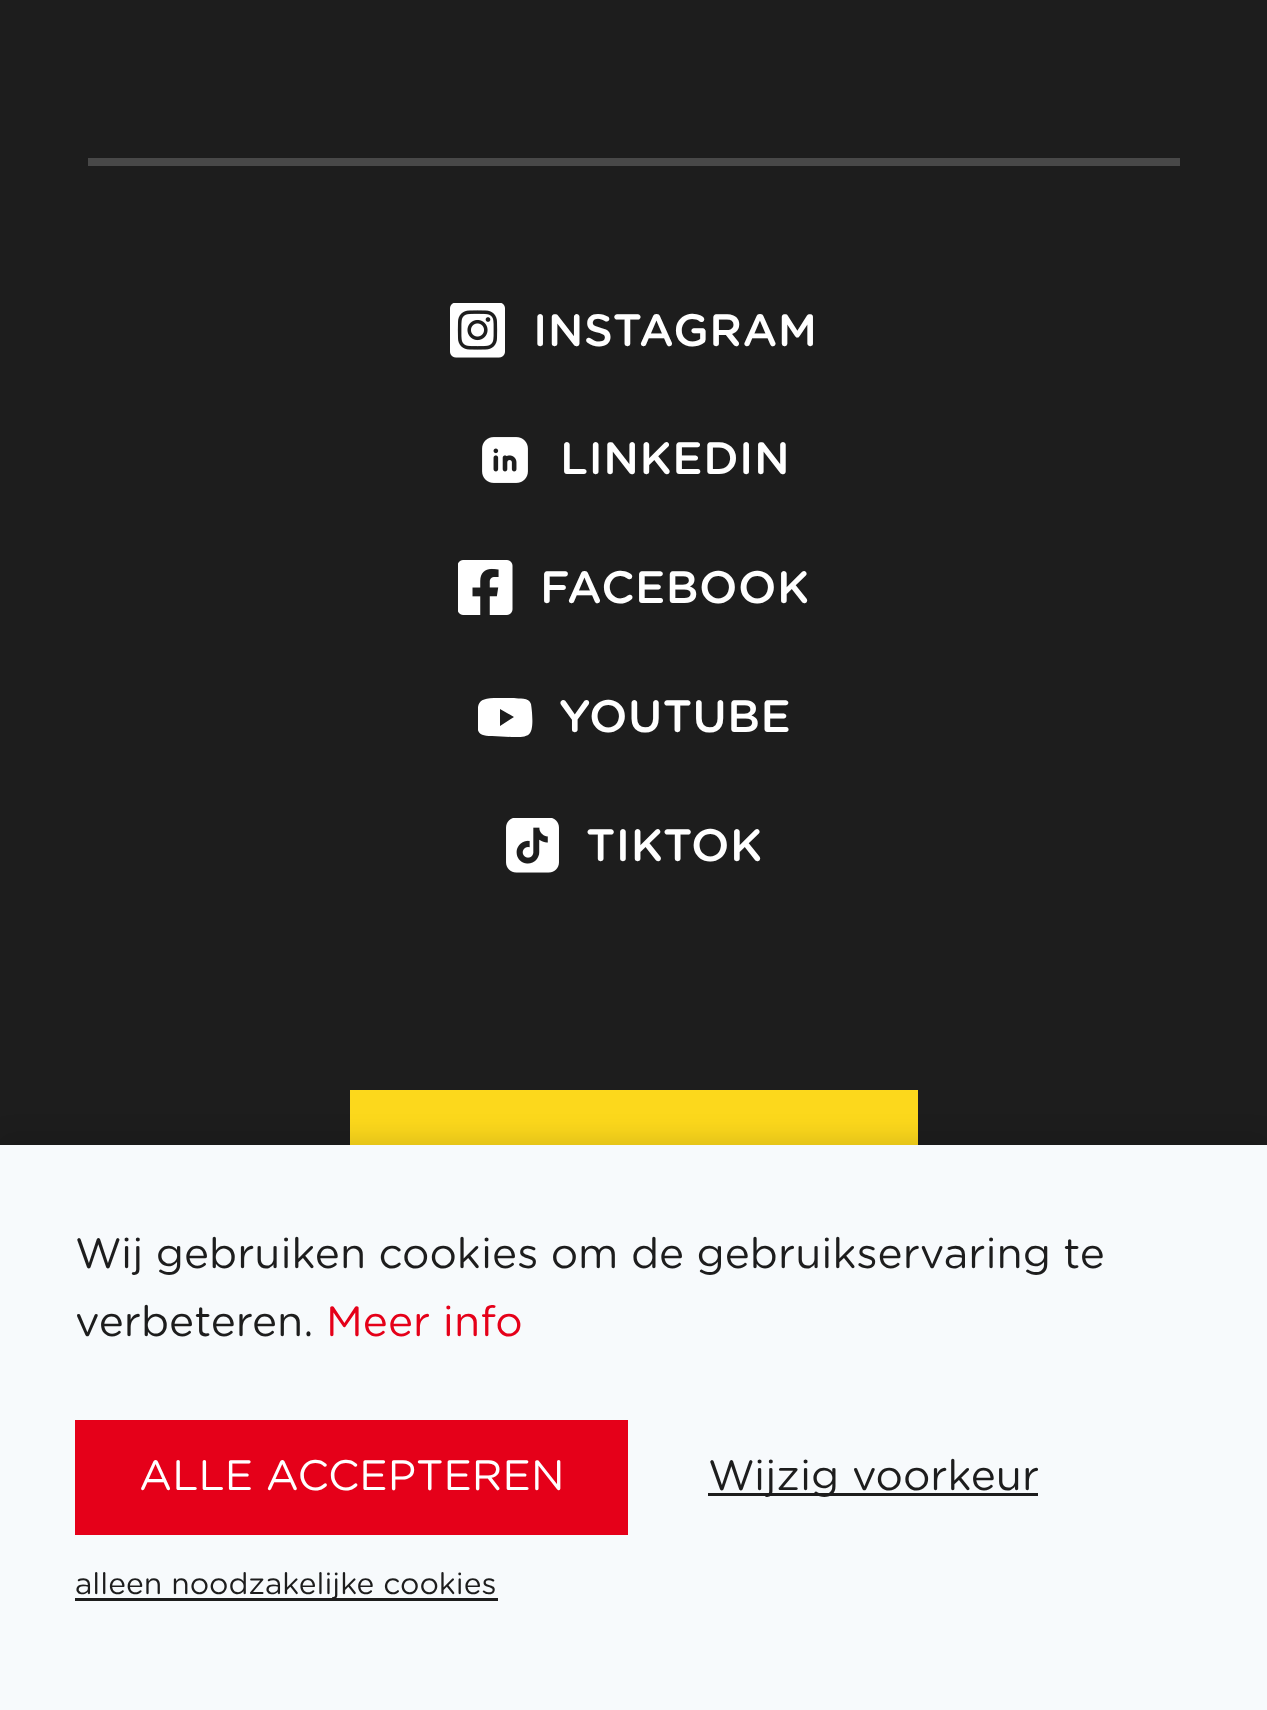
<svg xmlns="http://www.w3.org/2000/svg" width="1267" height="1710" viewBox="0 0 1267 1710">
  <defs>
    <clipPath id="clip1"><path d="M478 690h55v55H478z"/></clipPath>
  </defs>
  <rect width="100%" height="100%" fill="#1d1d1d"/>
  <path d="M88 158h1092v8H88z" fill="#484848"/>
  <image x="450" y="303" width="55" height="55" href="img/1.png"/>
  <image x="482" y="437" width="46" height="46" href="img/2.png"/>
  <image x="458" y="560" width="55" height="55" href="img/3.png"/>
  <g clip-path="url(#clip1)">
    <path d="M531 704C529 697 519 699 514 698H494C478 699 478 702 477 717C477 732 477 736 492 736L512 737C516 737 527 738 530 733C534 728 532 710 531 704ZM500 726V709L514 717Z" fill="#fff"/>
  </g>
  <image x="506" y="818" width="53" height="55" href="img/4.png"/>
  <path d="M350 1090h568v55H350z" fill="#fcd81c"/>
  <path d="M0 1138h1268v565H0z" fill="#0000001f" filter="blur(12.5px)"/>
  <path d="M0 1145h1267v565H0z" fill="#f7fafc"/>
  <path d="M75 1420h553v115H75z" fill="#e50019"/>
  <path d="M708 1493h330v3H708z" fill="#1d1d1d"/>
  <path d="M75 1598h423v3H75z" fill="#1d1d1d"/>
  <g font-family="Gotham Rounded" font-size="45.25" font-weight="500" letter-spacing="0.5" fill="#fff">
    <text x="533" y="346">INSTAGRAM</text>
    <text x="560" y="474">LINKEDIN</text>
    <text x="540" y="603">FACEBOOK</text>
    <text x="559" y="732">YOUTUBE</text>
    <text x="586" y="861">TIKTOK</text>
  </g>
  <g font-family="Gotham Rounded" font-size="42.4" fill="#1d1d1d">
    <text x="75" y="1268" word-spacing="-0.25">Wij gebruiken cookies om de gebruikservaring te</text>
    <text x="75" y="1336">verbeteren.</text>
  </g>
  <text x="326" y="1336" font-family="Gotham Rounded" font-size="42.4" fill="#e50019">Meer info</text>
  <text x="139" y="1490" font-family="Gotham Rounded" font-size="42.4" fill="#fff">ALLE ACCEPTEREN</text>
  <text x="708" y="1490" font-family="Gotham Rounded" font-size="42.4" fill="#1d1d1d">Wijzig voorkeur</text>
  <text x="75" y="1594" font-family="Gotham Rounded" font-size="30" fill="#1d1d1d">alleen noodzakelijke cookies</text>
</svg>
